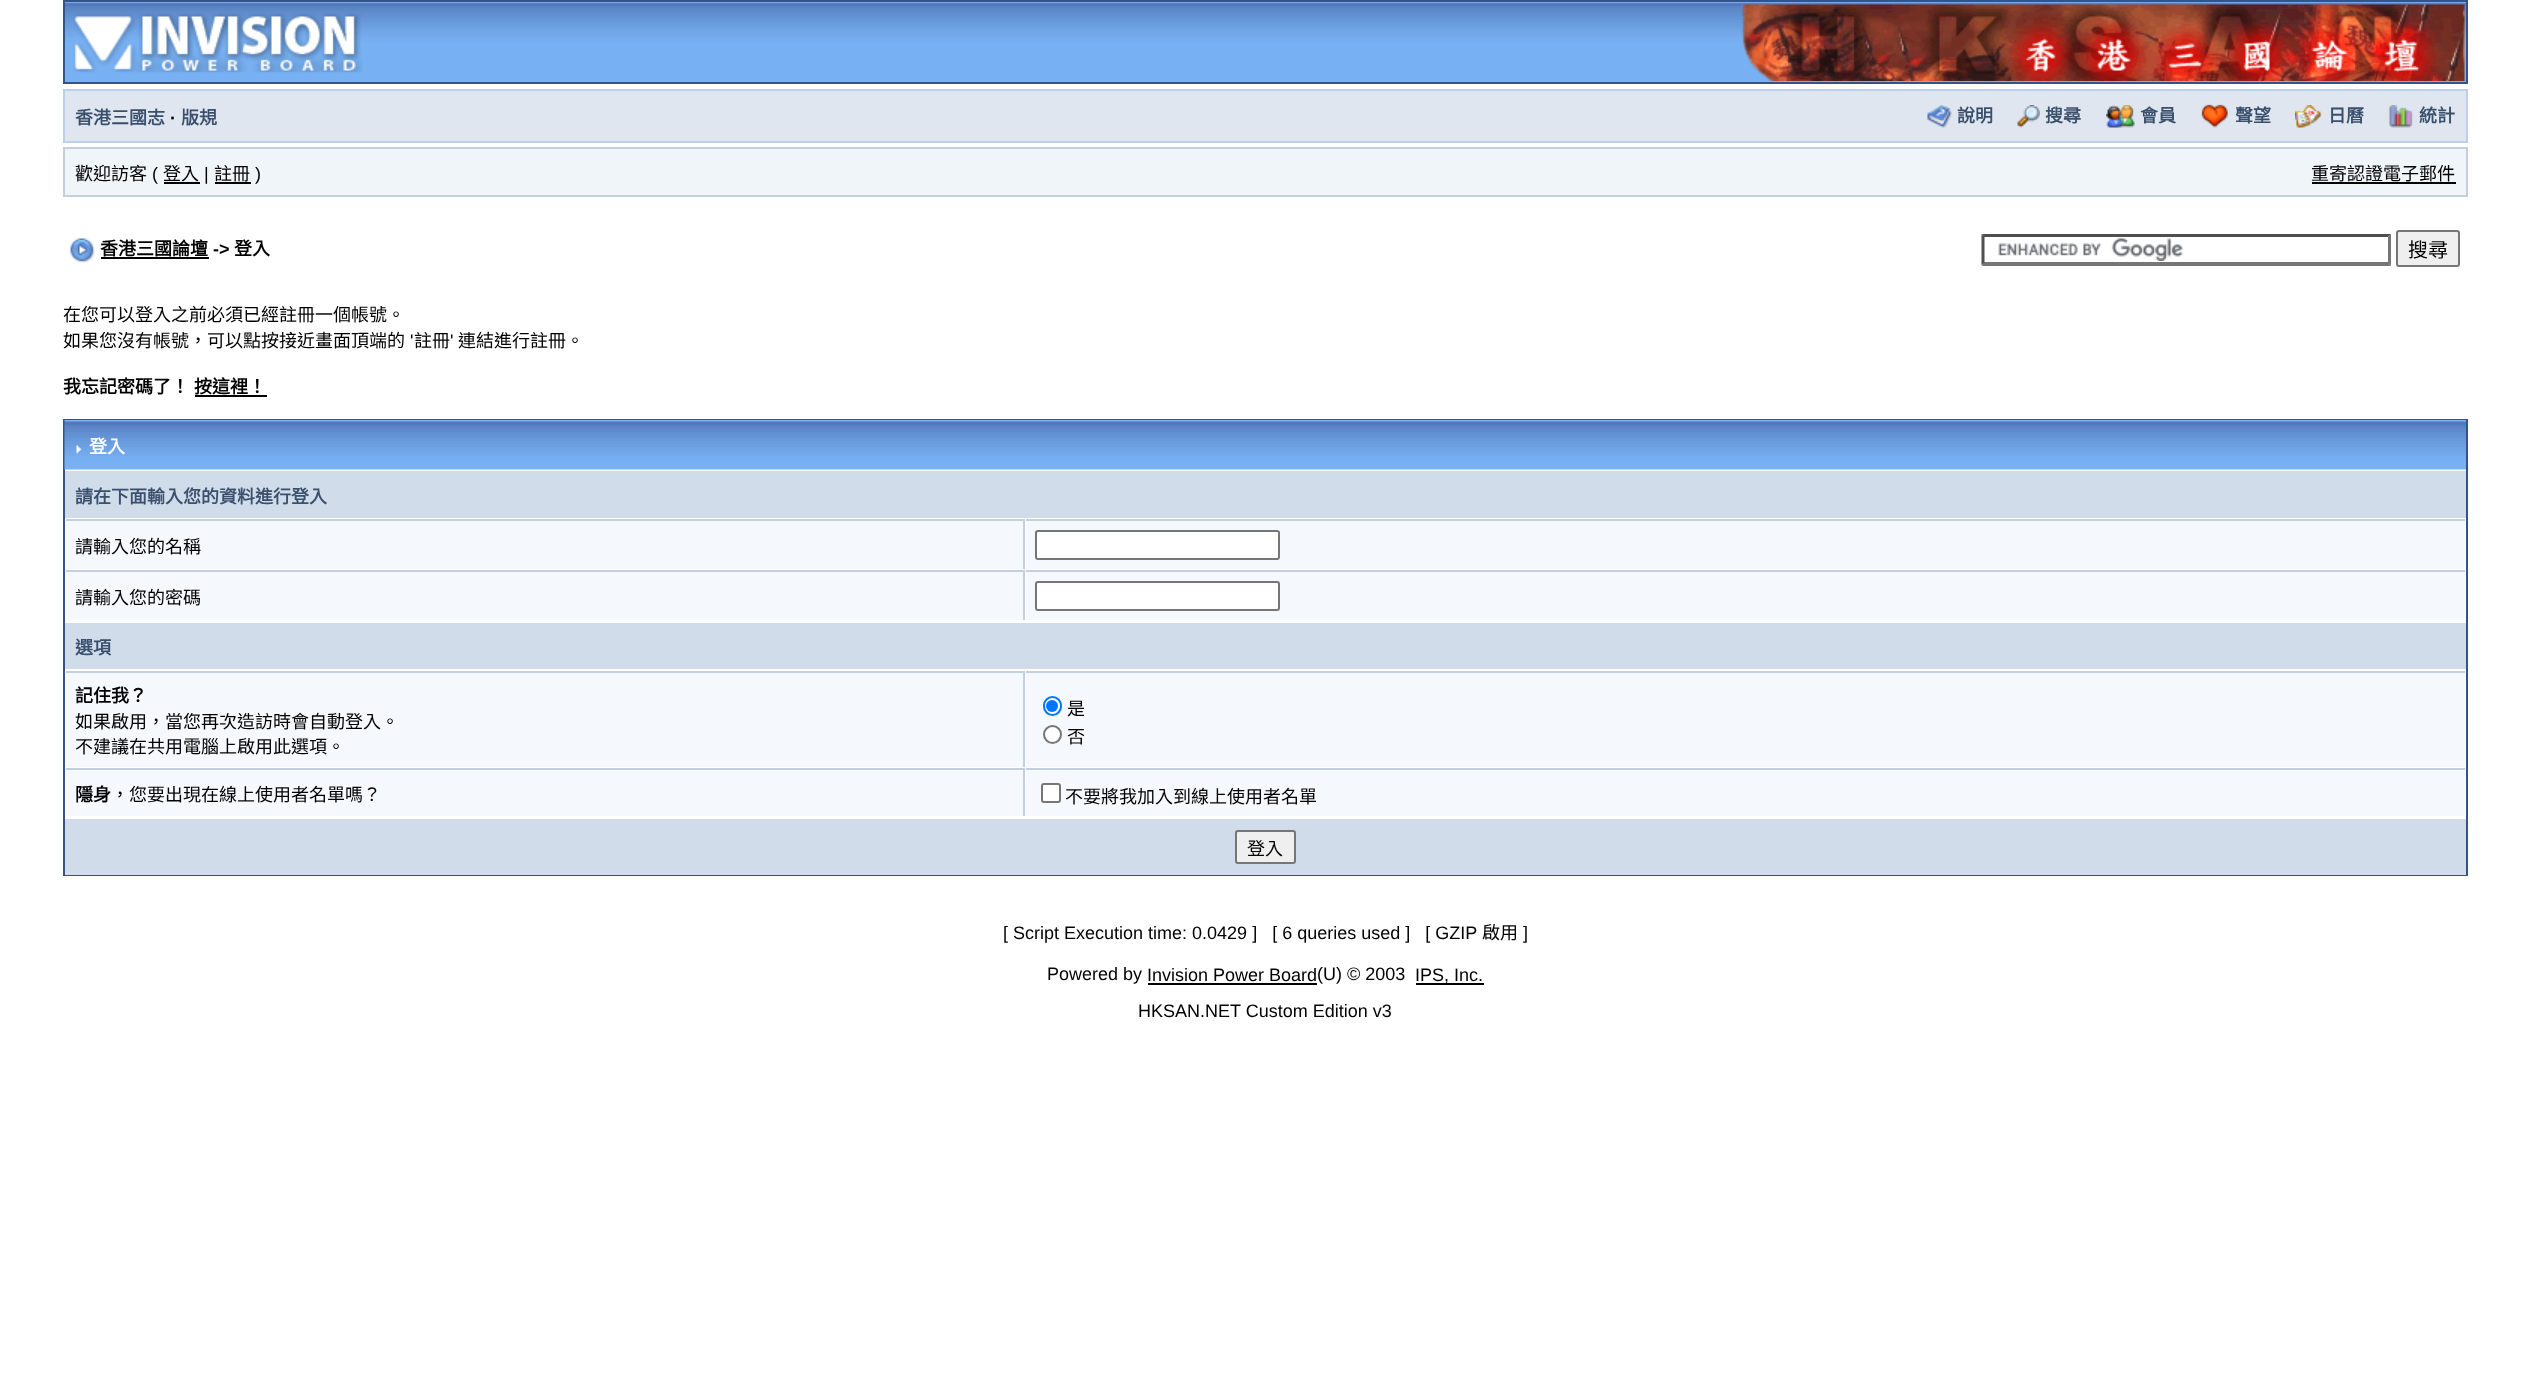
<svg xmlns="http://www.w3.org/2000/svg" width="2530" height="1399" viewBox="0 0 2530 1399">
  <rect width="100%" height="100%" fill="#fff"/>
  <image x="65" y="2" width="2401" height="80" href="img/1.png"/>
  <path d="M64 1h2403v82H64z" fill="none" stroke="#345487" stroke-width="2"/>
  <image x="73" y="13" width="290" height="60" href="img/2.png"/>
  <image x="1741" y="4" width="724" height="77" href="img/3.png"/>
  <path d="M64 90h2403v52H64z" fill="#dfe6ef" stroke="#bcd0ed" stroke-width="2"/>
  <image x="1927" y="105" width="25" height="23" href="img/4.png"/>
  <image x="2017" y="105" width="23" height="23" href="img/5.png"/>
  <image x="2106" y="105" width="29" height="23" href="img/6.png"/>
  <image x="2201" y="104" width="27" height="24" href="img/7.png"/>
  <image x="2295" y="105" width="27" height="23" href="img/8.png"/>
  <image x="2389" y="105" width="24" height="23" href="img/9.png"/>
  <path d="M64 148h2403v48H64z" fill="#f0f5fa" stroke="#c2cfdf" stroke-width="2"/>
  <path d="M164 182h36v2H164z" fill="#000"/>
  <path d="M215 182h36v2H215z" fill="#000"/>
  <path d="M2312 182h144v2H2312z" fill="#000"/>
  <image x="70" y="238" width="25" height="25" href="img/10.png"/>
  <path d="M101 257h108v2H101z" fill="#000"/>
  <image x="1998" y="238" width="185" height="23" href="img/11.png"/>
  <path d="M1982 234H2391L2388 237H1984Z" fill="#4f4f4f"/>
  <path d="M2391 234V265.5L2388 262.5V237Z" fill="#767676"/>
  <path d="M2391 266H1982L1984 262H2388Z" fill="#767676"/>
  <path d="M1981.5 265.5V234L1984.5 237V262.5Z" fill="#4f4f4f"/>
  <rect x="2397" y="231" width="62" height="35" rx="2" fill="#efefef" stroke="#767676" stroke-width="2"/>
  <path d="M195 395h72v2H195z" fill="#000"/>
  <path d="M64 420h2403v455H64z" fill="none" stroke="#345487" stroke-width="2"/>
  <image x="64" y="420" width="2402" height="50" href="img/12.png"/>
  <image x="76" y="445" width="6" height="9" href="img/13.png"/>
  <path d="M65 471h2401v47H65z" fill="#d1dceb"/>
  <path d="M66 521h957v48H66z" fill="#f5f9fd"/>
  <path d="M66 519h959v2H66z" fill="#c2cfdf"/>
  <path d="M1023 519h2v50H1023z" fill="#c2cfdf"/>
  <path d="M1026 521h1439v48H1026z" fill="#f5f9fd"/>
  <path d="M1026 519h1439v2H1026z" fill="#c2cfdf"/>
  <rect x="1036" y="531" width="243" height="28" rx="2" fill="#fff" stroke="#767676" stroke-width="2"/>
  <path d="M66 572h957v48H66z" fill="#f5f9fd"/>
  <path d="M66 570h959v2H66z" fill="#c2cfdf"/>
  <path d="M1023 570h2v50H1023z" fill="#c2cfdf"/>
  <path d="M1026 572h1439v48H1026z" fill="#f5f9fd"/>
  <path d="M1026 570h1439v2H1026z" fill="#c2cfdf"/>
  <rect x="1036" y="582" width="243" height="28" rx="2" fill="#fff" stroke="#767676" stroke-width="2"/>
  <path d="M65 623h2401v46H65z" fill="#d1dceb"/>
  <path d="M66 673h957v94H66z" fill="#f5f9fd"/>
  <path d="M66 671h959v2H66z" fill="#c2cfdf"/>
  <path d="M1023 671h2v96H1023z" fill="#c2cfdf"/>
  <path d="M1026 673h1439v94H1026z" fill="#f5f9fd"/>
  <path d="M1026 671h1439v2H1026z" fill="#c2cfdf"/>
  <rect x="1044" y="697" width="17" height="18" rx="8.5" fill="#fff" stroke="#0075ff" stroke-width="2"/>
  <circle cx="1052" cy="706" r="6" fill="#0075ff"/>
  <circle cx="1052.5" cy="734.5" r="8.5" fill="#fff" stroke="#767676" stroke-width="2"/>
  <path d="M66 770h957v46H66z" fill="#f5f9fd"/>
  <path d="M66 768h959v2H66z" fill="#c2cfdf"/>
  <path d="M1023 768h2v48H1023z" fill="#c2cfdf"/>
  <path d="M1026 770h1439v46H1026z" fill="#f5f9fd"/>
  <path d="M1026 768h1439v2H1026z" fill="#c2cfdf"/>
  <rect x="1042" y="784" width="18" height="18" rx="2" fill="#fff" stroke="#767676" stroke-width="2"/>
  <path d="M65 819h2401v56H65z" fill="#d1dceb"/>
  <rect x="1236" y="831" width="59" height="32" rx="2" fill="#efefef" stroke="#767676" stroke-width="2"/>
  <path d="M1148 983h169v2H1148z" fill="#000"/>
  <path d="M1416 983h68v2H1416z" fill="#000"/>
  <text x="75" y="124" font-family="Noto Sans CJK TC" font-size="18" font-weight="bold" fill="#3a4f6c">香港三國志</text>
  <text x="170" y="124" font-family="Liberation Sans" font-size="18" font-weight="bold" fill="#000">·</text>
  <g font-family="Noto Sans CJK TC" font-size="18" font-weight="bold" fill="#3a4f6c">
    <text x="181" y="124">版規</text>
    <text x="1957" y="122">說明</text>
    <text x="2045" y="122">搜尋</text>
    <text x="2140" y="122">會員</text>
    <text x="2235" y="122">聲望</text>
    <text x="2328" y="122">日曆</text>
    <text x="2419" y="122">統計</text>
  </g>
  <text x="75" y="180" font-family="Noto Sans CJK TC" font-size="18" fill="#000">歡迎訪客</text>
  <text x="152" y="180" font-family="Liberation Sans" font-size="18" fill="#000">(</text>
  <text x="163" y="180" font-family="Noto Sans CJK TC" font-size="18" fill="#000">登入</text>
  <text x="204" y="180" font-family="Liberation Sans" font-size="18" fill="#000">|</text>
  <text x="214" y="180" font-family="Noto Sans CJK TC" font-size="18" fill="#000">註冊</text>
  <text x="255" y="180" font-family="Liberation Sans" font-size="18" fill="#000">)</text>
  <text x="2311" y="180" font-family="Noto Sans CJK TC" font-size="18" fill="#000">重寄認證電子郵件</text>
  <text x="100" y="255" font-family="Noto Sans CJK TC" font-size="18" font-weight="bold" fill="#000">香港三國論壇</text>
  <text x="213" y="255" font-family="Liberation Sans" font-size="18" font-weight="bold" fill="#000">-&gt;</text>
  <text x="234" y="255" font-family="Noto Sans CJK TC" font-size="18" font-weight="bold" fill="#000">登入</text>
  <text x="2408" y="257" font-family="Noto Sans CJK TC" font-size="20" fill="#000">搜尋</text>
  <g font-family="Noto Sans CJK TC" font-size="18" fill="#000">
    <text x="63" y="321">在您可以登入之前必須已經註冊一個帳號。</text>
    <text x="63" y="347">如果您沒有帳號，可以點按接近畫面頂端的</text>
  </g>
  <text x="410" y="347" font-family="Liberation Sans" font-size="18" fill="#000">'</text>
  <text x="414" y="347" font-family="Noto Sans CJK TC" font-size="18" fill="#000">註冊</text>
  <text x="450" y="347" font-family="Liberation Sans" font-size="18" fill="#000">'</text>
  <text x="458" y="347" font-family="Noto Sans CJK TC" font-size="18" fill="#000">連結進行註冊。</text>
  <g font-family="Noto Sans CJK TC" font-size="18" font-weight="bold" fill="#000">
    <text x="63" y="393">我忘記密碼了！</text>
    <text x="194" y="393">按這裡！</text>
  </g>
  <text x="89" y="453" font-family="Noto Sans CJK TC" font-size="18" font-weight="bold" fill="#fff">登入</text>
  <text x="75" y="503" font-family="Noto Sans CJK TC" font-size="18" font-weight="bold" fill="#3a4f6c">請在下面輸入您的資料進行登入</text>
  <g font-family="Noto Sans CJK TC" font-size="18" fill="#000">
    <text x="75" y="553">請輸入您的名稱</text>
    <text x="75" y="604">請輸入您的密碼</text>
  </g>
  <text x="75" y="654" font-family="Noto Sans CJK TC" font-size="18" font-weight="bold" fill="#3a4f6c">選項</text>
  <text x="75" y="702" font-family="Noto Sans CJK TC" font-size="18" font-weight="bold" fill="#000">記住我？</text>
  <g font-family="Noto Sans CJK TC" font-size="18" fill="#000">
    <text x="75" y="728">如果啟用，當您再次造訪時會自動登入。</text>
    <text x="75" y="753">不建議在共用電腦上啟用此選項。</text>
    <text x="1067" y="715">是</text>
    <text x="1067" y="743">否</text>
  </g>
  <text x="75" y="801" font-family="Noto Sans CJK TC" font-size="18" font-weight="bold" fill="#000">隱身</text>
  <g font-family="Noto Sans CJK TC" font-size="18" fill="#000">
    <text x="111" y="801">，您要出現在線上使用者名單嗎？</text>
    <text x="1065" y="803">不要將我加入到線上使用者名單</text>
    <text x="1247" y="855">登入</text>
  </g>
  <text x="1003" y="939" font-family="Liberation Sans" font-size="18" fill="#000" xml:space="preserve">[ Script Execution time: 0.0429 ]   [ 6 queries used ]   [ GZIP</text>
  <text x="1482" y="939" font-family="Noto Sans CJK TC" font-size="18" fill="#000">啟用</text>
  <g font-family="Liberation Sans" font-size="18" fill="#000">
    <text x="1523" y="939">]</text>
    <text x="1047" y="980">Powered by</text>
    <text x="1147" y="981">Invision Power Board</text>
    <text x="1317" y="980">(U) © 2003</text>
    <text x="1415" y="981">IPS, Inc.</text>
    <text x="1138" y="1017">HKSAN.NET Custom Edition v3</text>
  </g>
</svg>
